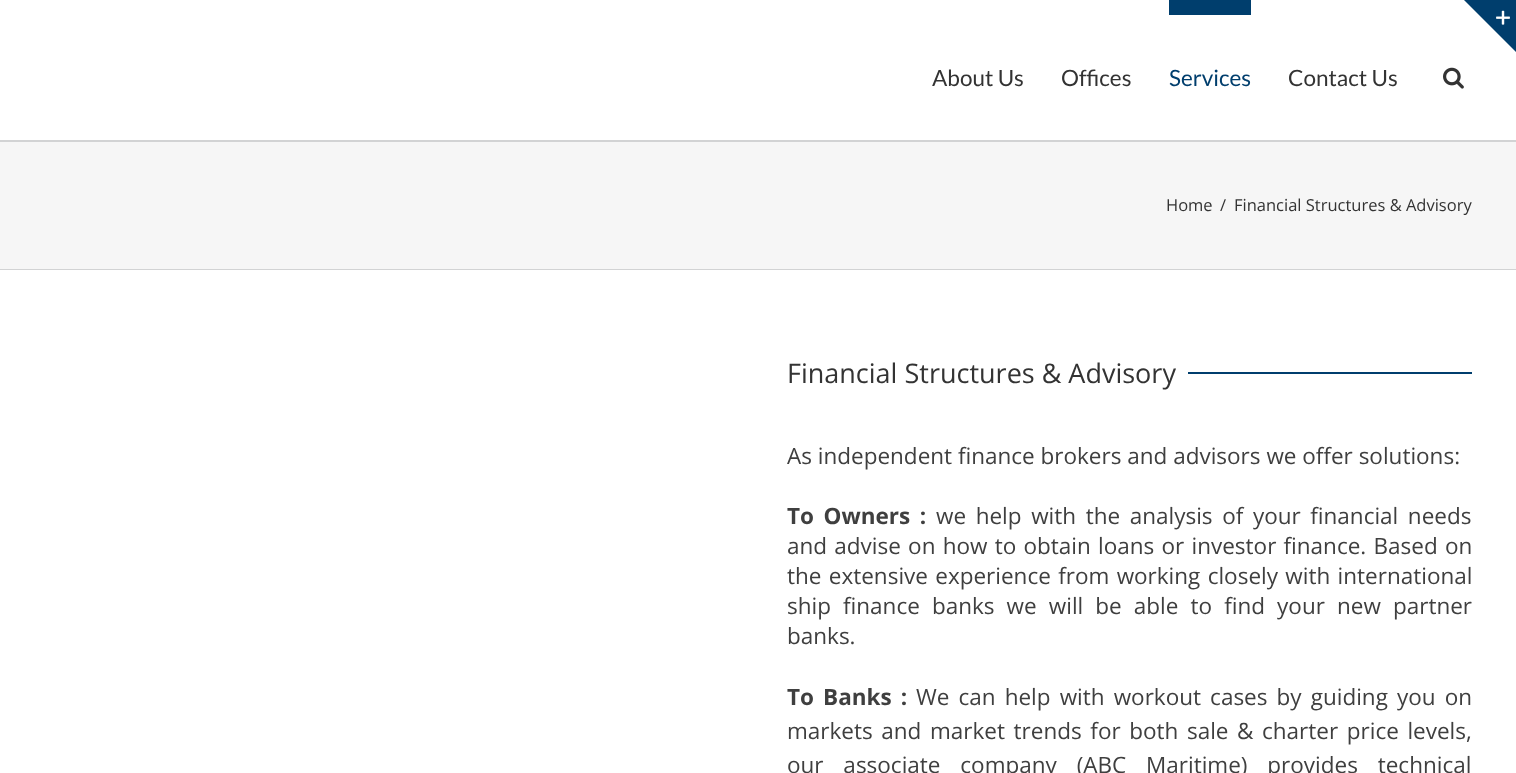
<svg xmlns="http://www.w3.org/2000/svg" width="1516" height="773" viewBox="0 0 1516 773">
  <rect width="100%" height="100%" fill="#fff"/>
  <path d="M1464 0H1516V52Z" fill="#003e6d"/>
  <image x="1496" y="10" width="14" height="15" href="img/1.png"/>
  <path d="M1169 0h82v15H1169z" fill="#003e6d"/>
  <image x="1443" y="67" width="21" height="22" href="img/2.png"/>
  <path d="M0 142h1516v127H0z" fill="#f6f6f6"/>
  <path d="M0 140h1516v2H0z" fill="#d2d3d4"/>
  <path d="M0 269h1516v1H0z" fill="#d2d3d4"/>
  <path d="M1188 372h284v2H1188z" fill="#003e6d"/>
  <g font-family="Lato" font-size="22.5" fill="#333">
    <text x="932" y="86">About Us</text>
    <text x="1061" y="86">Offices</text>
  </g>
  <text x="1169" y="86" font-family="Lato" font-size="22.5" fill="#003e6d">Services</text>
  <text x="1288" y="86" font-family="Lato" font-size="22.5" fill="#333">Contact Us</text>
  <g font-family="Open Sans" font-size="16.5" fill="#333">
    <text x="1166" y="211">Home</text>
    <text x="1220" y="211">/</text>
    <text x="1234" y="211">Financial Structures &amp; Advisory</text>
  </g>
  <text x="787" y="383" font-family="Open Sans" font-size="27" fill="#333">Financial Structures &amp; Advisory</text>
  <text x="787" y="464" font-family="Open Sans" font-size="22.5" fill="#3f3f3f">As independent finance brokers and advisors we offer solutions:</text>
  <text x="787" y="524" word-spacing="3.75" font-family="Open Sans" font-size="22.5" font-weight="bold" fill="#3f3f3f">To Owners :</text>
  <g font-family="Open Sans" font-size="22.5" fill="#3f3f3f">
    <text x="936" y="524" word-spacing="3.75">we help with the analysis of your financial needs</text>
    <text x="787" y="554" word-spacing="1.4">and advise on how to obtain loans or investor finance. Based on</text>
    <text x="787" y="584" word-spacing="1.5">the extensive experience from working closely with international</text>
    <text x="787" y="614" word-spacing="6.25">ship finance banks we will be able to find your new partner</text>
    <text x="787" y="644">banks.</text>
  </g>
  <text x="787" y="705" word-spacing="3.25" font-family="Open Sans" font-size="22.5" font-weight="bold" fill="#3f3f3f">To Banks :</text>
  <g font-family="Open Sans" font-size="22.5" fill="#3f3f3f">
    <text x="916" y="705" word-spacing="3.25">We can help with workout cases by guiding you on</text>
    <text x="787" y="739" word-spacing="2.75">markets and market trends for both sale &amp; charter price levels,</text>
    <text x="787" y="773" word-spacing="14">our associate company (ABC Maritime) provides technical</text>
  </g>
</svg>
